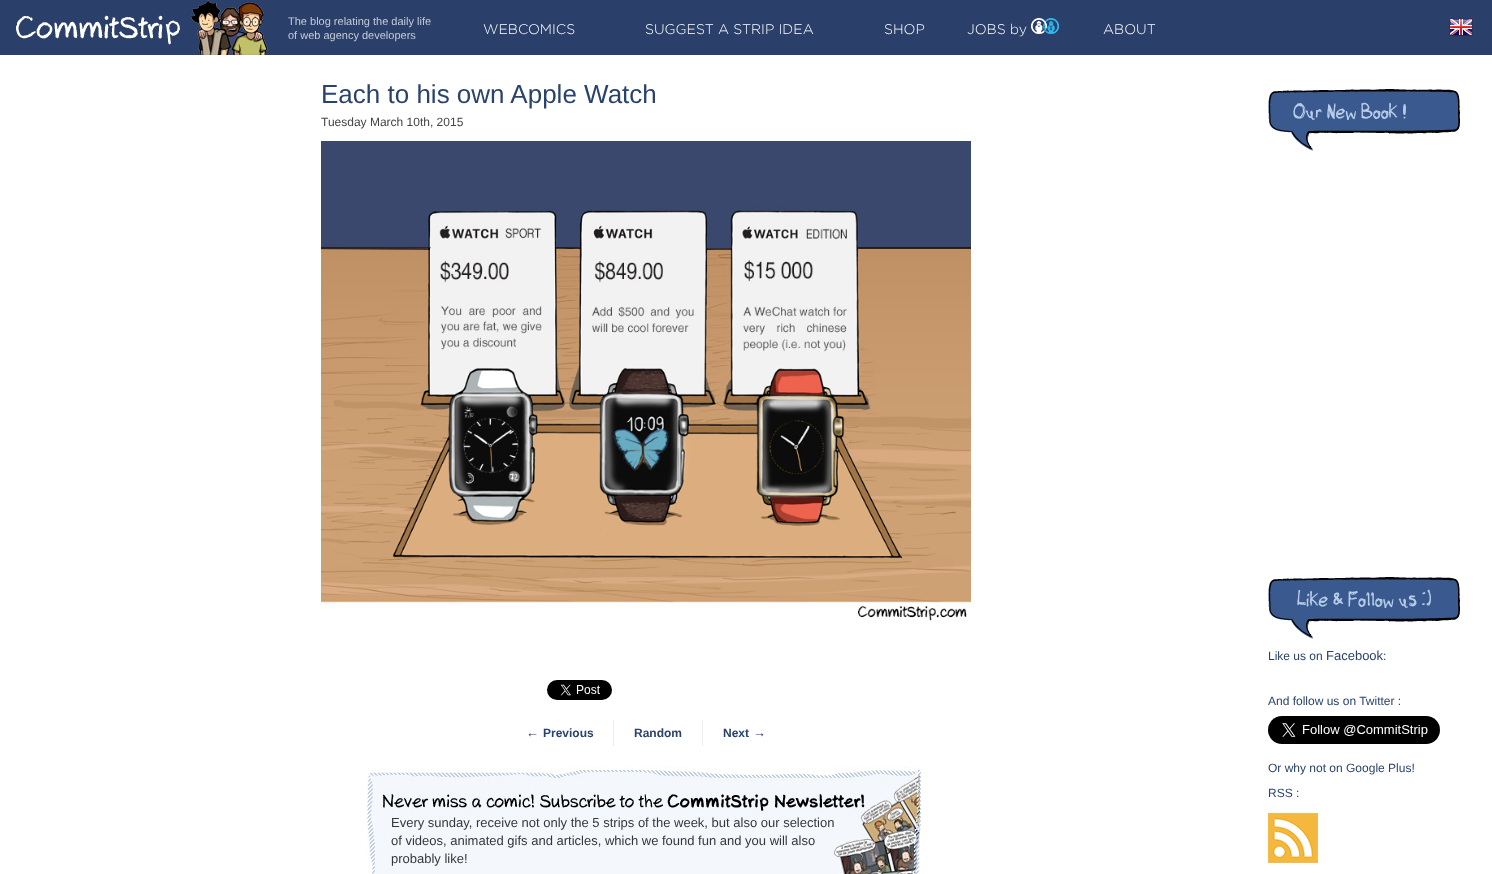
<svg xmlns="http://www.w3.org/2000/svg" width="1492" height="874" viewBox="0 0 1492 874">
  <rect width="100%" height="100%" fill="#fff"/>
  <path d="M0 0h1492v55H0z" fill="#2b3f6b"/>
  <image x="16" y="0" width="252" height="55" href="img/1.png"/>
  <image x="1031" y="18" width="28" height="16" href="img/2.png"/>
  <image x="1449" y="18" width="24" height="19" href="img/3.png"/>
  <image x="321" y="141" width="650" height="480" href="img/4.png"/>
  <image x="547" y="680" width="65" height="20" href="img/5.png"/>
  <path d="M702 720h1v26H702z" fill="#eee"/>
  <path d="M613 720h1v26H613z" fill="#eee"/>
  <image x="367" y="766" width="554" height="108" href="img/6.png"/>
  <image x="1268" y="89" width="192" height="62" href="img/7.png"/>
  <image x="1268" y="577" width="192" height="62" href="img/7.png"/>
  <image x="1268" y="716" width="172" height="28" href="img/8.png"/>
  <image x="1268" y="813" width="50" height="50" href="img/9.png"/>
  <g font-family="Liberation Sans" font-size="11" fill="#c5cbd7">
    <text x="288" y="25">The blog relating the daily life</text>
    <text x="288" y="39">of web agency developers</text>
  </g>
  <g font-family="gotham" font-size="14" font-weight="300" fill="#fff">
    <text x="483" y="34">WEBCOMICS</text>
    <text x="645" y="34">SUGGEST A STRIP IDEA</text>
    <text x="884" y="34">SHOP</text>
    <text x="967" y="34">JOBS by</text>
    <text x="1103" y="34">ABOUT</text>
  </g>
  <text x="321" y="103" font-family="Liberation Sans" font-size="26" fill="#2a436c">Each to his own Apple Watch</text>
  <text x="321" y="126" font-family="Liberation Sans" font-size="12" fill="#444">Tuesday March 10th, 2015</text>
  <text x="526" y="737" font-family="Liberation Sans" font-size="13" fill="#2a436c">←</text>
  <g font-family="Liberation Sans" font-size="12" font-weight="bold" fill="#2a436c">
    <text x="543" y="737">Previous</text>
    <text x="634" y="737">Random</text>
    <text x="723" y="737">Next</text>
  </g>
  <text x="753" y="737" font-family="Liberation Sans" font-size="13" fill="#2a436c">→</text>
  <g font-family="Liberation Sans" font-size="13" fill="#373737">
    <text x="391" y="827">Every sunday, receive not only the 5 strips of the week, but also our selection</text>
    <text x="391" y="845">of videos, animated gifs and articles, which we found fun and you will also</text>
    <text x="391" y="863">probably like!</text>
  </g>
  <g font-family="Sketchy" font-size="20" font-weight="500" fill="#b9cdea">
    <text x="1293" y="117">Our New Book !</text>
    <text x="1297" y="605">Like &amp; Follow us :)</text>
  </g>
  <text x="1268" y="660" font-family="Liberation Sans" font-size="12" fill="#2a436c">Like us on</text>
  <text x="1326" y="660" font-family="Liberation Sans" font-size="13" fill="#2a436c">Facebook</text>
  <g font-family="Liberation Sans" font-size="12" fill="#2a436c">
    <text x="1383" y="660">:</text>
    <text x="1268" y="705">And follow us on Twitter :</text>
    <text x="1268" y="772">Or why not on Google Plus!</text>
    <text x="1268" y="797">RSS :</text>
  </g>
</svg>
